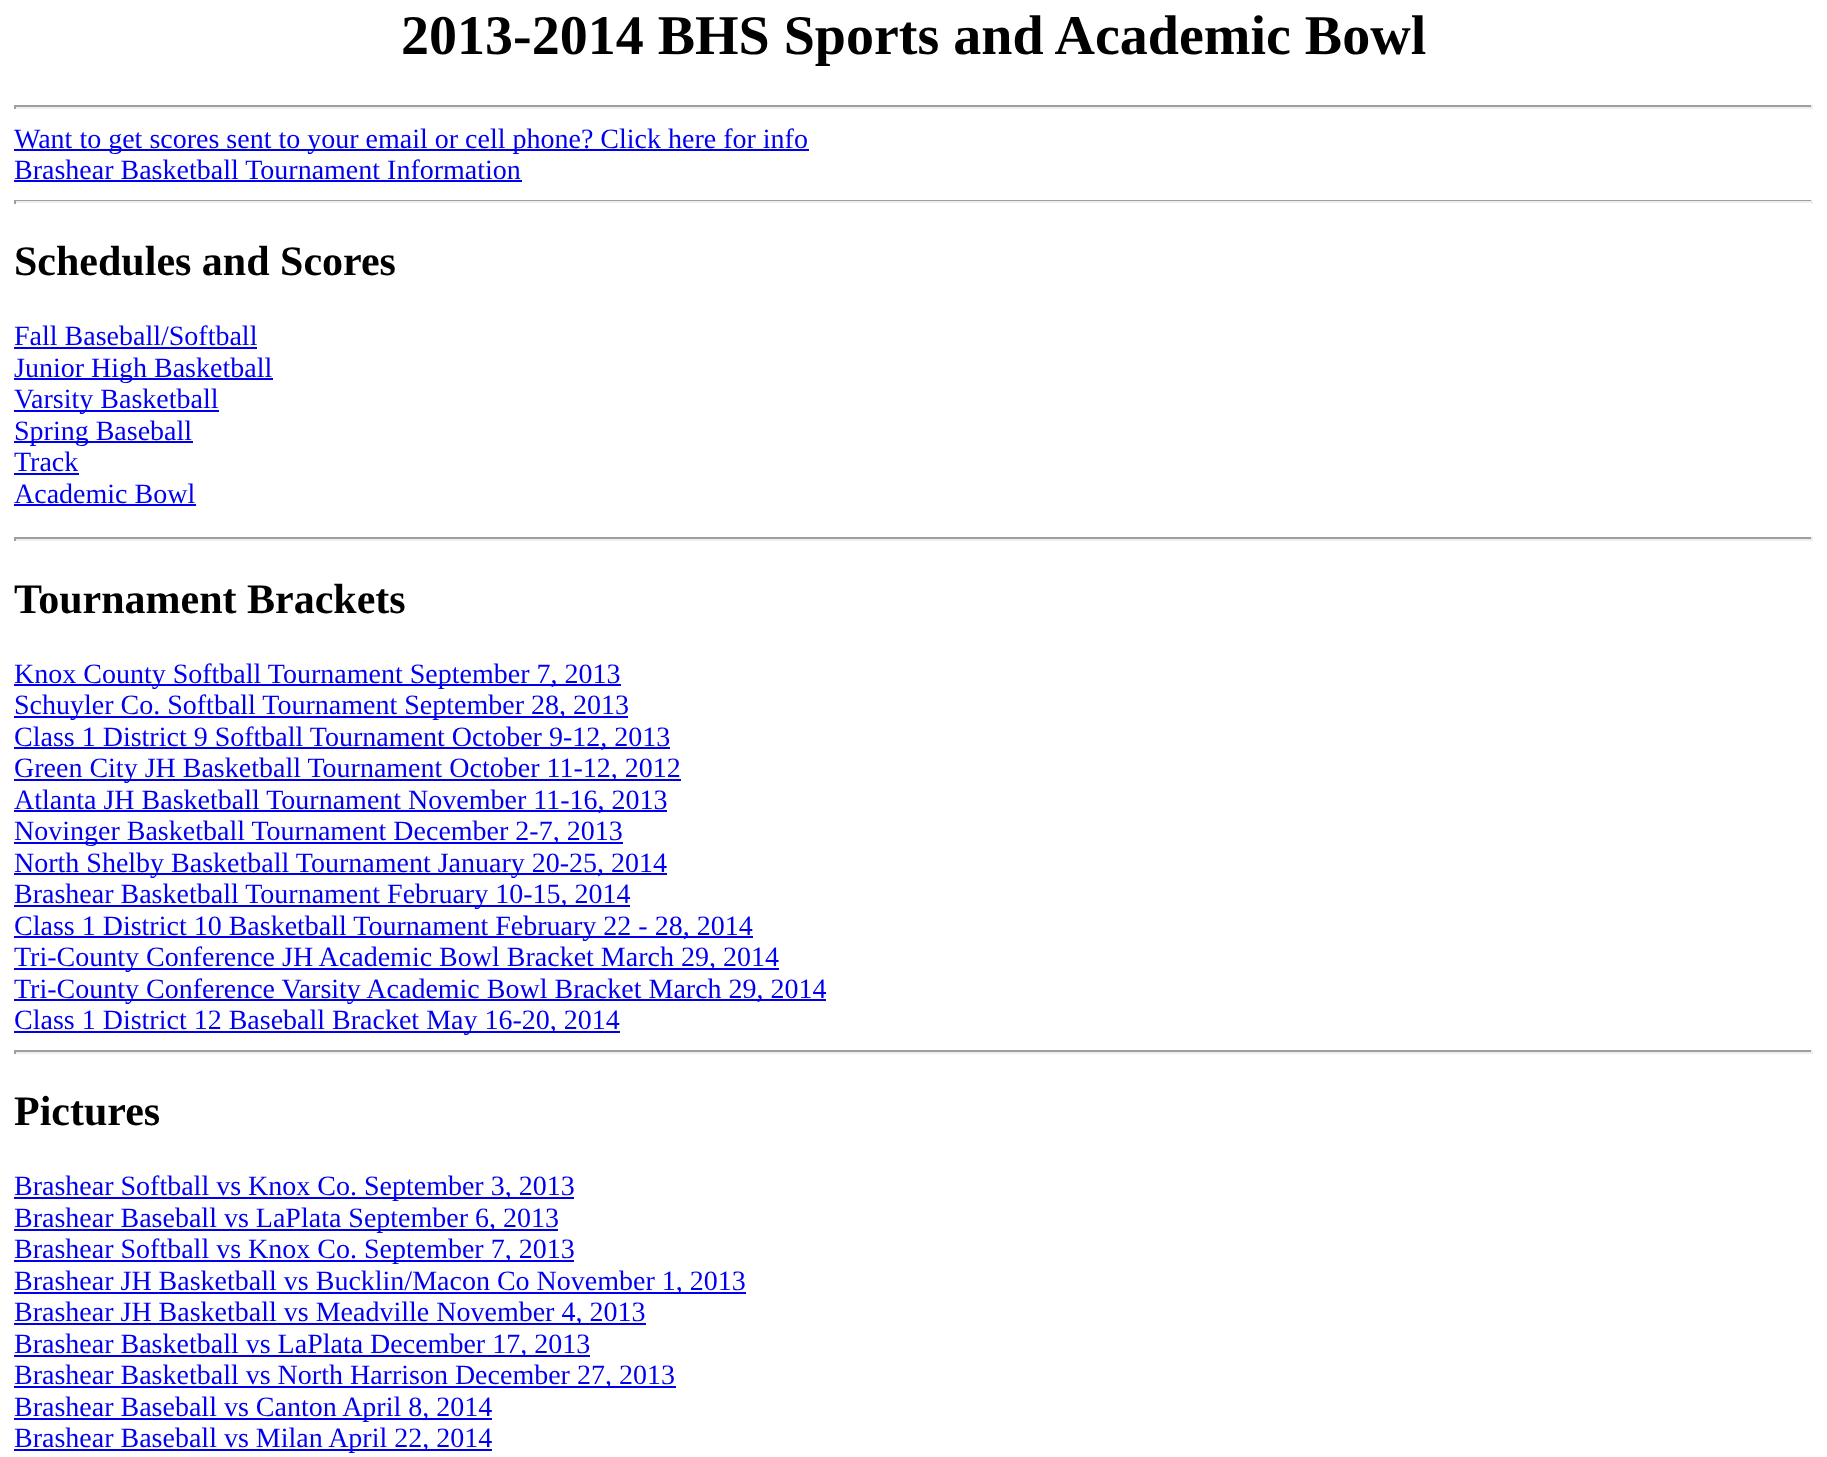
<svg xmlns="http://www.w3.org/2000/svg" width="1827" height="1457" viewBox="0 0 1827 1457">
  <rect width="100%" height="100%" fill="#fff"/>
  <path d="M14 105h1799v2H14z" fill="#9f9f9f"/>
  <path d="M1811 105h2v4H1811z" fill="#eee"/>
  <path d="M14 107h1799v2H14z" fill="#eee"/>
  <path d="M14 105h2v4H14z" fill="#9f9f9f"/>
  <path d="M14 149h795v2H14z" fill="#00e"/>
  <path d="M14 180h508v2H14z" fill="#00e"/>
  <path d="M14 200h1799v1H14z" fill="#9f9f9f"/>
  <path d="M1811 200h2v4H1811z" fill="#eee"/>
  <path d="M14 201h1799v2H14z" fill="#eee"/>
  <path d="M14 200h2v4H14z" fill="#9f9f9f"/>
  <path d="M14 347h243v2H14z" fill="#00e"/>
  <path d="M14 378h259v2H14z" fill="#00e"/>
  <path d="M14 410h205v2H14z" fill="#00e"/>
  <path d="M14 441h179v2H14z" fill="#00e"/>
  <path d="M14 473h65v2H14z" fill="#00e"/>
  <path d="M14 504h182v2H14z" fill="#00e"/>
  <path d="M14 537h1799v2H14z" fill="#9f9f9f"/>
  <path d="M1811 537h2v4H1811z" fill="#eee"/>
  <path d="M14 539h1799v2H14z" fill="#eee"/>
  <path d="M14 537h2v4H14z" fill="#9f9f9f"/>
  <path d="M14 684h607v2H14z" fill="#00e"/>
  <path d="M14 716h614v2H14z" fill="#00e"/>
  <path d="M14 747h656v2H14z" fill="#00e"/>
  <path d="M14 779h667v2H14z" fill="#00e"/>
  <path d="M14 810h653v2H14z" fill="#00e"/>
  <path d="M14 842h609v2H14z" fill="#00e"/>
  <path d="M14 873h653v2H14z" fill="#00e"/>
  <path d="M14 905h616v2H14z" fill="#00e"/>
  <path d="M14 936h739v2H14z" fill="#00e"/>
  <path d="M14 968h765v2H14z" fill="#00e"/>
  <path d="M14 999h812v2H14z" fill="#00e"/>
  <path d="M14 1031h606v2H14z" fill="#00e"/>
  <path d="M14 1050h1799v2H14z" fill="#9f9f9f"/>
  <path d="M1811 1050h2v4H1811z" fill="#eee"/>
  <path d="M14 1052h1799v2H14z" fill="#eee"/>
  <path d="M14 1050h2v4H14z" fill="#9f9f9f"/>
  <path d="M14 1197h560v2H14z" fill="#00e"/>
  <path d="M14 1229h544v2H14z" fill="#00e"/>
  <path d="M14 1260h560v2H14z" fill="#00e"/>
  <path d="M14 1292h732v2H14z" fill="#00e"/>
  <path d="M14 1323h632v2H14z" fill="#00e"/>
  <path d="M14 1355h576v2H14z" fill="#00e"/>
  <path d="M14 1386h662v2H14z" fill="#00e"/>
  <path d="M14 1418h478v2H14z" fill="#00e"/>
  <path d="M14 1449h478v2H14z" fill="#00e"/>
  <text x="401" y="54" font-family="Liberation Serif" font-size="56" font-weight="bold" fill="#000">2013-2014 BHS Sports and Academic Bowl</text>
  <g font-family="Liberation Serif" font-size="28" fill="#00e">
    <text x="14" y="148">Want to get scores sent to your email or cell phone? Click here for info</text>
    <text x="14" y="179">Brashear Basketball Tournament Information</text>
  </g>
  <text x="14" y="275" font-family="Liberation Serif" font-size="42" font-weight="bold" fill="#000">Schedules and Scores</text>
  <g font-family="Liberation Serif" font-size="28" fill="#00e">
    <text x="14" y="345">Fall Baseball/Softball</text>
    <text x="14" y="377">Junior High Basketball</text>
    <text x="14" y="408">Varsity Basketball</text>
    <text x="14" y="440">Spring Baseball</text>
    <text x="14" y="471">Track</text>
    <text x="14" y="503">Academic Bowl</text>
  </g>
  <text x="14" y="613" font-family="Liberation Serif" font-size="42" font-weight="bold" fill="#000">Tournament Brackets</text>
  <g font-family="Liberation Serif" font-size="28" fill="#00e">
    <text x="14" y="683">Knox County Softball Tournament September 7, 2013</text>
    <text x="14" y="714">Schuyler Co. Softball Tournament September 28, 2013</text>
    <text x="14" y="746">Class 1 District 9 Softball Tournament October 9-12, 2013</text>
    <text x="14" y="777">Green City JH Basketball Tournament October 11-12, 2012</text>
    <text x="14" y="809">Atlanta JH Basketball Tournament November 11-16, 2013</text>
    <text x="14" y="840">Novinger Basketball Tournament December 2-7, 2013</text>
    <text x="14" y="872">North Shelby Basketball Tournament January 20-25, 2014</text>
    <text x="14" y="903">Brashear Basketball Tournament February 10-15, 2014</text>
    <text x="14" y="935">Class 1 District 10 Basketball Tournament February 22 - 28, 2014</text>
    <text x="14" y="966">Tri-County Conference JH Academic Bowl Bracket March 29, 2014</text>
    <text x="14" y="998">Tri-County Conference Varsity Academic Bowl Bracket March 29, 2014</text>
    <text x="14" y="1029">Class 1 District 12 Baseball Bracket May 16-20, 2014</text>
  </g>
  <text x="14" y="1125" font-family="Liberation Serif" font-size="42" font-weight="bold" fill="#000">Pictures</text>
  <g font-family="Liberation Serif" font-size="28" fill="#00e">
    <text x="14" y="1195">Brashear Softball vs Knox Co. September 3, 2013</text>
    <text x="14" y="1227">Brashear Baseball vs LaPlata September 6, 2013</text>
    <text x="14" y="1258">Brashear Softball vs Knox Co. September 7, 2013</text>
    <text x="14" y="1290">Brashear JH Basketball vs Bucklin/Macon Co November 1, 2013</text>
    <text x="14" y="1321">Brashear JH Basketball vs Meadville November 4, 2013</text>
    <text x="14" y="1353">Brashear Basketball vs LaPlata December 17, 2013</text>
    <text x="14" y="1384">Brashear Basketball vs North Harrison December 27, 2013</text>
    <text x="14" y="1416">Brashear Baseball vs Canton April 8, 2014</text>
    <text x="14" y="1447">Brashear Baseball vs Milan April 22, 2014</text>
  </g>
</svg>
